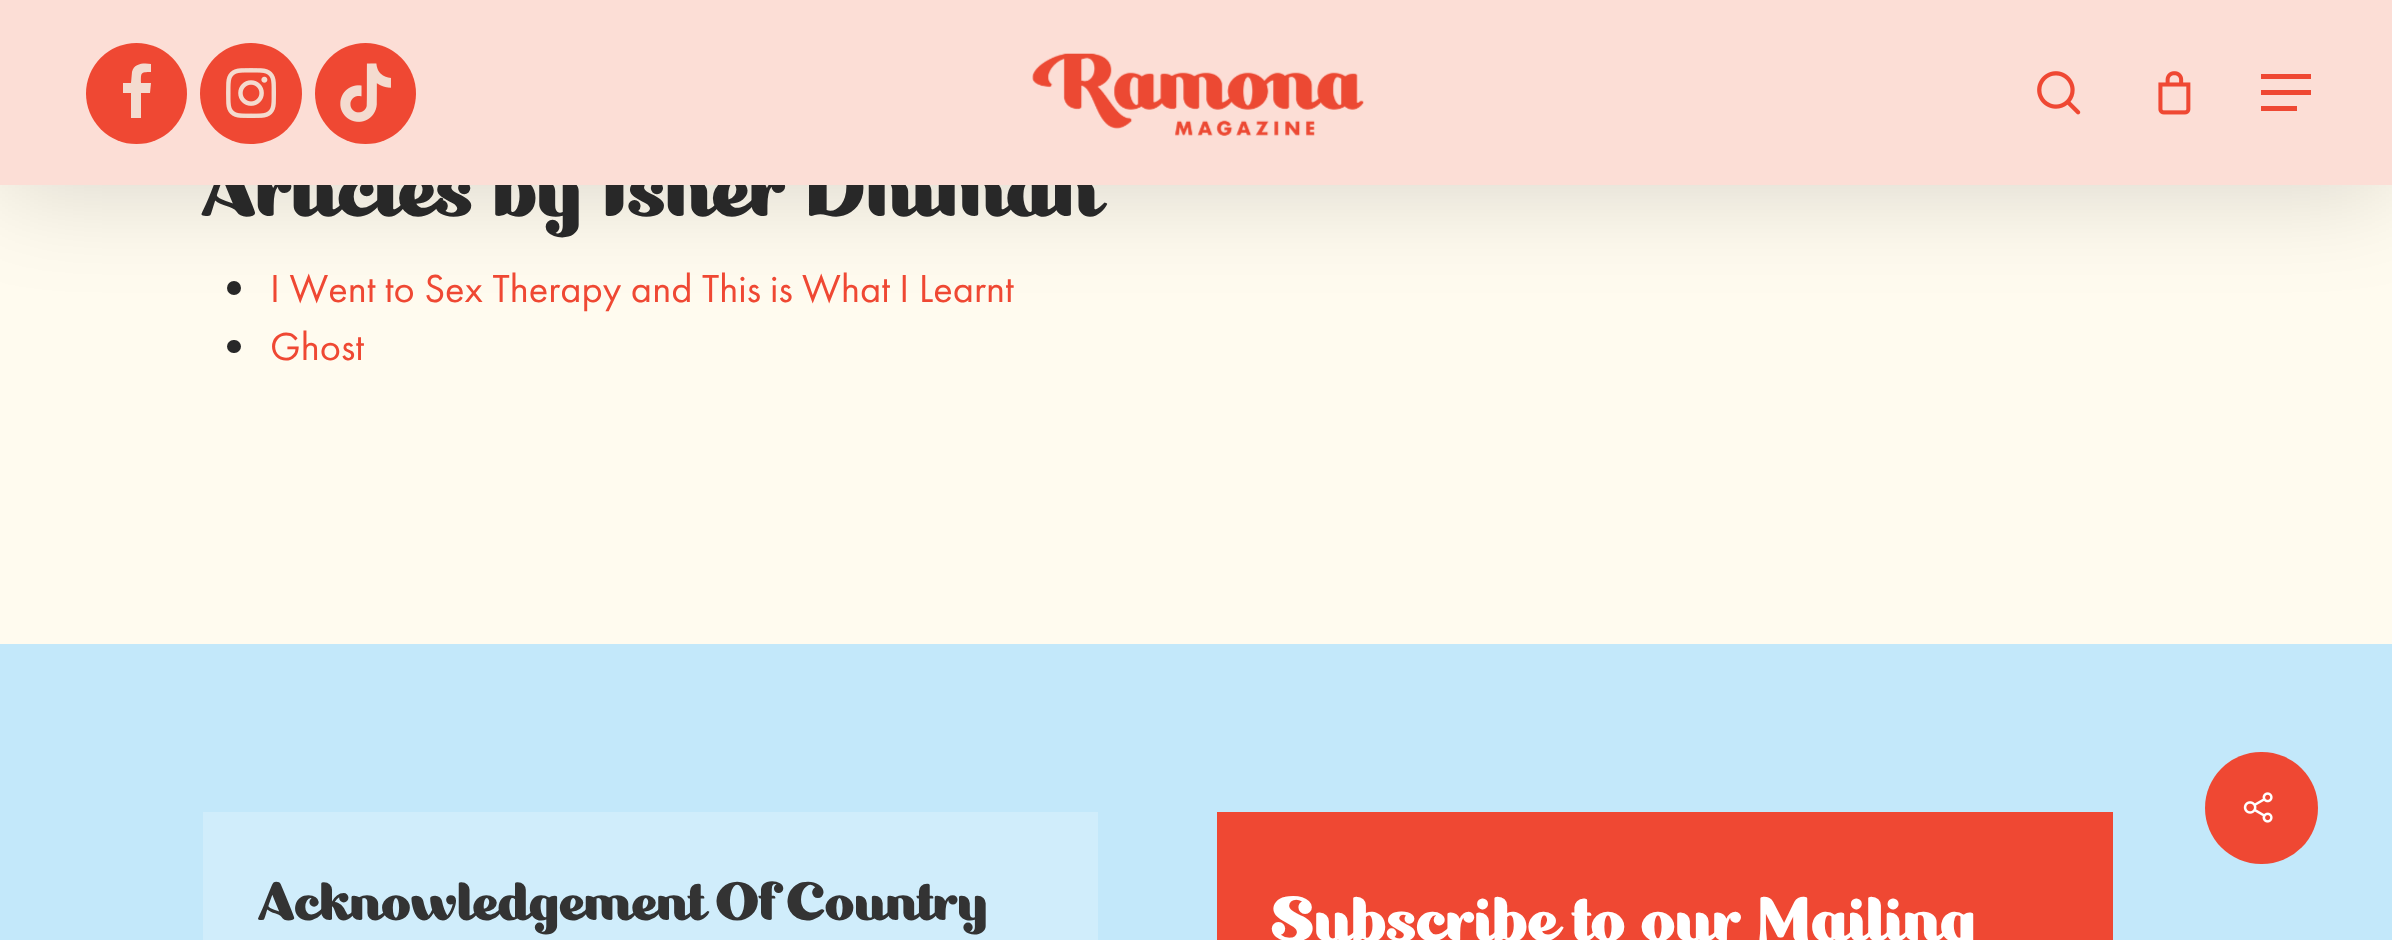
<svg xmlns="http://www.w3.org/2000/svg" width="2392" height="940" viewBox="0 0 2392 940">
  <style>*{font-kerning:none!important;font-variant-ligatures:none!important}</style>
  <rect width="100%" height="100%" fill="#fffbef"/>
  <circle cx="234" cy="288" r="7" fill="#282828"/>
  <rect x="227" y="340" width="14" height="13" rx="6.5" fill="#282828"/>
  <path d="M0 7h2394v184H0z" fill="#00000026" filter="blur(50.5px)"/>
  <path d="M0 644h2392v296H0z" fill="#c3e8fa"/>
  <rect x="2205" y="752" width="113" height="112" rx="56" fill="#ef4833"/>
  <image x="2243" y="792" width="30" height="31" href="img/6.png"/>
  <path d="M203 812h895v128H203z" fill="#d0edfb"/>
  <path d="M1217 812h896v128H1217z" fill="#ef4833"/>
  <text x="203" y="216" word-spacing="-0.5" font-family="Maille" font-size="76.5" fill="#282828">Articles by Isher Dhiman</text>
  <path d="M0 0h2392v185H0z" fill="#fcded6"/>
  <image x="1032" y="53" width="332" height="83" href="img/5.png"/>
  <path d="M2261 74h50v5H2261z" fill="#ef4833"/>
  <path d="M2261 106h36v5H2261z" fill="#ef4833"/>
  <path d="M2261 90h50v5H2261z" fill="#ef4833"/>
  <image x="2158" y="71" width="33" height="44" href="img/4.png"/>
  <image x="2037" y="71" width="44" height="44" href="img/3.png"/>
  <circle cx="365.5" cy="93.5" r="50.5" fill="#ef4833"/>
  <image x="340" y="63" width="51" height="59" href="img/2.png"/>
  <rect x="200" y="43" width="102" height="101" rx="50.5" fill="#ef4833"/>
  <image x="226" y="68" width="50" height="50" href="img/1.png"/>
  <circle cx="136.5" cy="93.5" r="50.5" fill="#ef4833"/>
  <path d="M151 64V72C140 72 141 73 141 83H151L150 93H141V118H131V93H123V83H131L132 72C134 63 144 63 151 64Z" fill="#f4dbcf"/>
  <g font-family="Futura PT" font-size="40.5" fill="#ef4833">
    <text x="270" y="302">I Went to Sex Therapy and This</text>
    <text x="770" y="302">is What I Learnt</text>
    <text x="270" y="360">Ghost</text>
  </g>
  <text x="259" y="920" word-spacing="-2" font-family="Maille" font-size="51.75" fill="#333">Acknowledgement Of Country</text>
  <text x="1273" y="941" word-spacing="-1" font-family="Maille" font-size="60.75" fill="#fff">Subscribe to our Mailing</text>
</svg>
